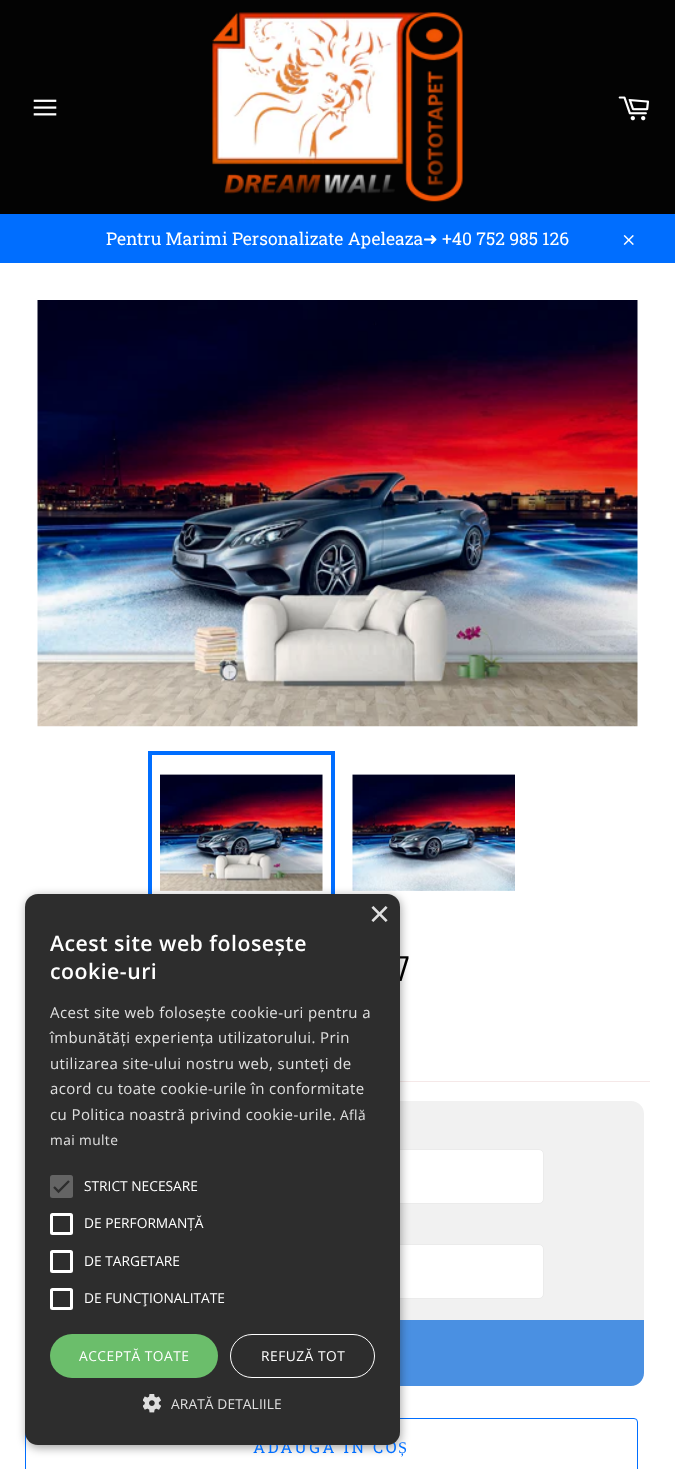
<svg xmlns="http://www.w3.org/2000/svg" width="675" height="1469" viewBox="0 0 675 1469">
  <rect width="100%" height="100%" fill="#030303"/>
  <image x="33" y="99" width="24" height="17" href="img/1.png"/>
  <image x="212" y="12" width="251" height="190" href="img/2.png"/>
  <image x="618" y="96" width="32" height="25" href="img/3.png"/>
  <path d="M0 214h675v49H0z" fill="#006eff"/>
  <image x="623" y="235" width="11" height="10" href="img/4.png"/>
  <path d="M0 263h675v1206H0z" fill="#fff"/>
  <image x="160" y="774" width="163" height="117" href="img/7.png"/>
  <path d="M150 753h183v159H150z" fill="none" stroke="#006eff" stroke-width="4"/>
  <image x="352" y="774" width="163" height="117" href="img/8.png"/>
  <path d="M400 1081h250v1H400z" fill="#f5e8e8"/>
  <rect x="219" y="1101" width="425" height="285" rx="13" fill="#f1f1f1"/>
  <rect x="244.5" y="1149.5" width="299" height="54" rx="4.5" fill="#fff" stroke="#ebebeb"/>
  <rect x="244.5" y="1244.5" width="299" height="54" rx="4.5" fill="#fff" stroke="#ebebeb"/>
  <path d="M219 1320H644V1373C644 1380 638 1386 631 1386H232C225 1386 219 1380 219 1373Z" fill="#4a90e2"/>
  <rect x="25.5" y="1418.5" width="612" height="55" rx="3.5" fill="none" stroke="#006eff"/>
  <rect x="26" y="896" width="375" height="552" rx="13" fill="#00000059" filter="blur(5px)"/>
  <image x="37" y="300" width="601" height="427" href="img/6.png"/>
  <text x="106" y="245" font-family="Roboto Slab" font-size="17.5" fill="#fff">Pentru Marimi Personalizate Apeleaza</text>
  <text x="423" y="245" font-family="DejaVu Sans" font-size="17.5" fill="#fff">➜</text>
  <text x="442" y="245" font-family="Roboto Slab" font-size="17.5" fill="#fff">+40 752 985 126</text>
  <text x="393" y="981" font-family="Unica One" font-size="38" letter-spacing="4" fill="#000">7</text>
  <text x="253" y="1453" font-family="Roboto Slab" font-size="16.25" letter-spacing="2.5" fill="#006eff">ADAUGĂ ÎN CO</text>
  <text x="398" y="1453" font-family="Liberation Serif" font-size="16.25" letter-spacing="2.5" fill="#006eff">Ș</text>
  <rect x="25" y="894" width="375" height="551" rx="13" fill="#2d2d2d"/>
  <text x="369" y="926" font-family="Liberation Sans" font-size="36" fill="#e0e0e0">×</text>
  <image x="143" y="1394" width="18" height="19" href="img/5.png"/>
  <text x="171" y="1409" font-family="Open Sans" font-size="13.75" letter-spacing="0.1" fill="#e0e0e0">ARATĂ DETALIILE</text>
  <rect x="51.5" y="1289.5" width="20" height="19" rx="1" fill="none" stroke="#fff" stroke-width="3"/>
  <rect x="51.5" y="1251.5" width="20" height="20" rx="1" fill="none" stroke="#fff" stroke-width="3"/>
  <rect x="51.5" y="1214.5" width="20" height="19" rx="1" fill="none" stroke="#fff" stroke-width="3"/>
  <rect x="50" y="1175" width="23" height="23" rx="2.5" fill="#646464"/>
  <path d="M54 1187L58.5 1191.5L69 1181" fill="none" stroke="#2d2d2d" stroke-width="2.3"/>
  <g font-family="Open Sans" font-size="13.75" letter-spacing="0.4" fill="#e0e0e0">
    <text x="50" y="1145">mai multe</text>
    <text x="340" y="1120">Află</text>
  </g>
  <g font-family="Open Sans" font-size="15" letter-spacing="0.4" fill="#e0e0e0">
    <text x="50" y="1120">cu Politica noastră privind cookie-urile.</text>
    <text x="50" y="1094">acord cu toate cookie-urile în conformitate</text>
    <text x="50" y="1069">utilizarea site-ului nostru web, sunteți de</text>
    <text x="50" y="1043">îmbunătăți experiența utilizatorului. Prin</text>
    <text x="50" y="1018">Acest site web folosește cookie-uri pentru a</text>
  </g>
  <rect x="230.5" y="1334.5" width="144" height="43" rx="21.5" fill="none" stroke="#fff"/>
  <text x="261" y="1361" font-family="Open Sans" font-size="13.75" letter-spacing="0.5" fill="#fff">REFUZĂ TOT</text>
  <rect x="50" y="1334" width="168" height="44" rx="22" fill="#6bbe6b"/>
  <text x="79" y="1361" font-family="Open Sans" font-size="13.75" letter-spacing="0.5" fill="#fff">ACCEPTĂ TOATE</text>
  <g font-family="Open Sans" font-size="13.75" fill="#fff">
    <text x="84" y="1303">DE FUNCŢIONALITATE</text>
    <text x="84" y="1266">DE TARGETARE</text>
    <text x="84" y="1228">DE PERFORMANȚĂ</text>
    <text x="84" y="1191">STRICT NECESARE</text>
  </g>
  <g font-family="Open Sans" font-size="21.25" font-weight="600" letter-spacing="0.5" fill="#fff">
    <text x="50" y="979">cookie-uri</text>
    <text x="50" y="951">Acest site web folosește</text>
  </g>
</svg>
